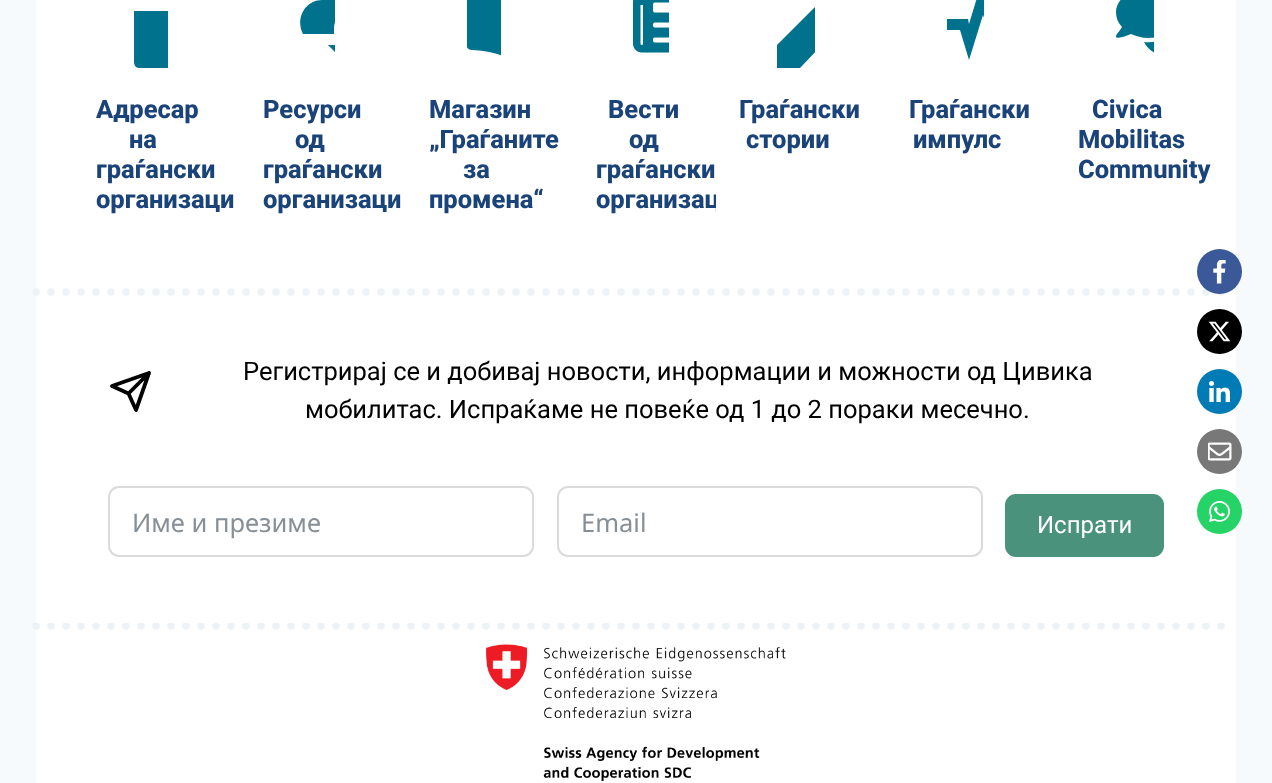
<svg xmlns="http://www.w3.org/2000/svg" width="1272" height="783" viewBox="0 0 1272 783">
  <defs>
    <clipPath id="clip1"><path d="M134 0h34v68H134z"/></clipPath>
    <clipPath id="clip2"><path d="M300 0h35v68H300z"/></clipPath>
    <clipPath id="clip3"><path d="M777 0h38v68H777z"/></clipPath>
    <clipPath id="clip4"><path d="M947 0h37v68H947z"/></clipPath>
    <clipPath id="clip5"><path d="M1116 0h38v68H1116z"/></clipPath>
  </defs>
  <rect width="100%" height="100%" fill="#f7fafc"/>
  <path d="M36 623h1200v160H36z" fill="#fff"/>
  <path d="M36 626H1236" fill="none" stroke="#edf2f7" stroke-width="7.5" stroke-linecap="round" stroke-dasharray="0 15"/>
  <path d="M36 0h1200v623H36z" fill="#fff"/>
  <g clip-path="url(#clip1)">
    <path d="M134-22V0H224V-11H167V-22ZM134 11V62C134 65 136 68 139 68H218C221 68 224 65 224 62V11Z" fill="#00728e"/>
  </g>
  <g clip-path="url(#clip2)">
    <path d="M351-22C337-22 325-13 322 0C305 0 295 19 303 34H334V28C334 19 341 11 351 11C360 11 368 19 368 28V34H389C392 25 387 14 379 11V6C379-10 366-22 351-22ZM349 22C346 23 345 26 345 28V45H328L351 68L373 45H356V34C356 27 357 22 349 22Z" fill="#00728e"/>
  </g>
  <image x="467" y="0" width="34" height="56" href="img/1.png"/>
  <image x="633" y="0" width="36" height="53" href="img/2.png"/>
  <g clip-path="url(#clip3)">
    <path d="M844-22L833-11L856 11L867 0ZM822 0L777 45V68H800L844 22Z" fill="#00728e"/>
  </g>
  <g clip-path="url(#clip4)">
    <path d="M983-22L969 24L968 19H946V30H960L969 60L983 15L997 58L1009 27L1011 30H1037V19H1018L1008 0L998 25Z" fill="#00728e"/>
  </g>
  <g clip-path="url(#clip5)">
    <path d="M1181 12C1181-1 1166-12 1148-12C1131-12 1116-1 1116 12C1116 18 1118 23 1122 27C1119 33 1109 40 1123 37L1131 34C1136 36 1142 38 1148 38C1166 38 1181 26 1181 12ZM1200 47C1213 32 1203 15 1186 9C1189 32 1163 44 1144 42C1152 58 1176 61 1191 54L1199 57C1213 60 1203 53 1200 47Z" fill="#00728e"/>
  </g>
  <path d="M36 292H1236" fill="none" stroke="#edf2f7" stroke-width="7.5" stroke-linecap="round" stroke-dasharray="0 15"/>
  <path d="M149 373L128.5 393.5M149 373L136 410L128.5 393.5L112 386Z" fill="none" stroke="#000" stroke-width="3.8" stroke-linecap="round" stroke-linejoin="round"/>
  <rect x="109" y="487" width="424" height="69" rx="10" fill="none" stroke="#dadbdd" stroke-width="2"/>
  <rect x="558" y="487" width="424" height="69" rx="10" fill="none" stroke="#dadbdd" stroke-width="2"/>
  <rect x="1006" y="495" width="157" height="61" rx="10" fill="#4a927b" stroke="#4a927b" stroke-width="2"/>
  <circle cx="1219.5" cy="271.5" r="22.5" fill="#3b5998"/>
  <image x="1213" y="260" width="13" height="24" href="img/3.png"/>
  <circle cx="1219.5" cy="331.5" r="22.5" fill="#000"/>
  <image x="1208" y="321" width="23" height="21" href="img/4.png"/>
  <circle cx="1219.5" cy="391.5" r="22.5" fill="#007bb6"/>
  <image x="1209" y="381" width="21" height="21" href="img/5.png"/>
  <circle cx="1219.5" cy="451.5" r="22.5" fill="#787878"/>
  <image x="1208" y="442" width="24" height="19" href="img/6.png"/>
  <circle cx="1219.5" cy="511.5" r="22.5" fill="#25d366"/>
  <image x="1209" y="501" width="21" height="21" href="img/7.png"/>
  <image x="486" y="644" width="300" height="137" href="img/8.png"/>
  <g font-family="Roboto" font-size="25.5" font-weight="800" fill="#1a4379">
    <text x="96" y="118">Адресар</text>
    <text x="129" y="148">на</text>
    <text x="96" y="178">граѓански</text>
    <text x="96" y="208">организаци</text>
    <text x="263" y="118">Ресурси</text>
    <text x="295" y="148">од</text>
    <text x="263" y="178">граѓански</text>
    <text x="263" y="208">организаци</text>
    <text x="429" y="118">Магазин</text>
    <text x="429" y="148">„Граѓаните</text>
    <text x="463" y="178">за</text>
    <text x="429" y="208">промена“</text>
    <text x="608" y="118">Вести</text>
    <text x="629" y="148">од</text>
    <text x="596" y="178">граѓански</text>
    <text x="596" y="208">организац</text>
  </g>
  <path d="M716 194h4v18H716z" fill="#fff"/>
  <g font-family="Roboto" font-size="25.5" font-weight="800" fill="#1a4379">
    <text x="739" y="118">Граѓански</text>
    <text x="746" y="148">стории</text>
    <text x="909" y="118">Граѓански</text>
    <text x="913" y="148">импулс</text>
    <text x="1092" y="118">Civica</text>
    <text x="1078" y="148">Mobilitas</text>
    <text x="1078" y="178">Community</text>
  </g>
  <g font-family="Roboto" font-size="25.5" fill="#000">
    <text x="243" y="380">Регистрирај се и добивај новости, информации и можности од Цивика</text>
    <text x="305" y="418">мобилитас. Испраќаме не повеќе од 1 до 2 пораки месечно.</text>
  </g>
  <g font-family="Noto Sans" font-size="25.5" fill="#868e96">
    <text x="132" y="532">Име и презиме</text>
    <text x="581" y="532">Email</text>
  </g>
  <text x="1037" y="533" font-family="Roboto" font-size="24" fill="#fff">Испрати</text>
</svg>
